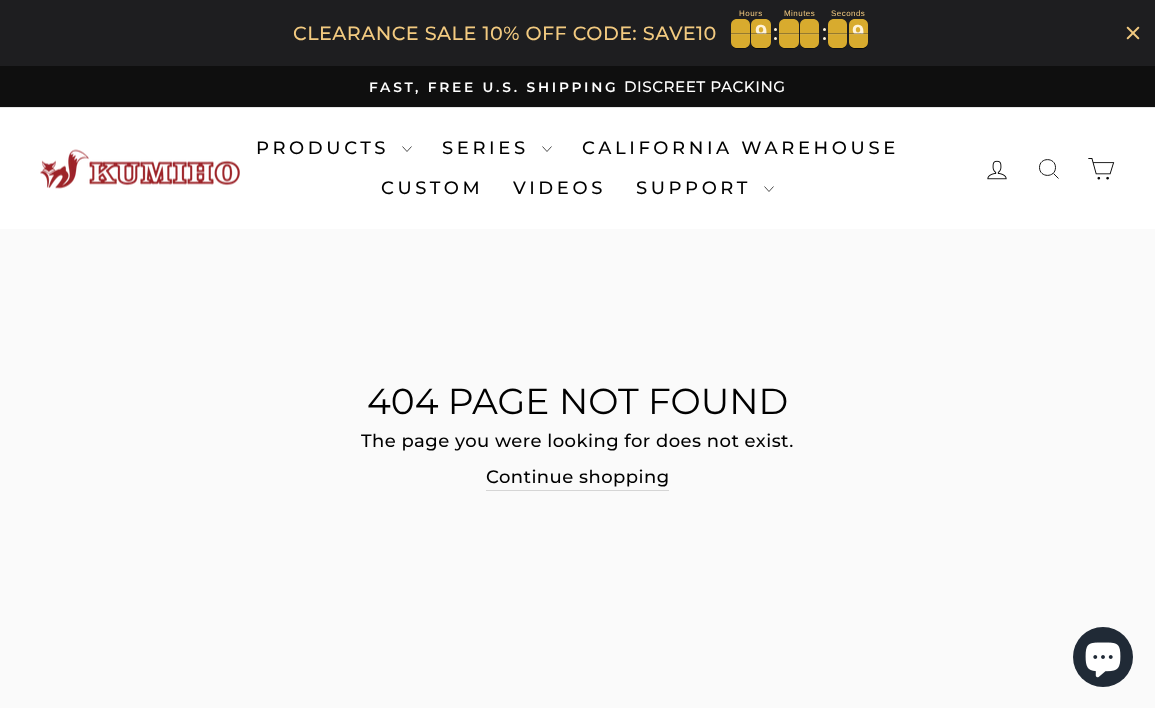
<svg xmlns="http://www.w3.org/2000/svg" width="1155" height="708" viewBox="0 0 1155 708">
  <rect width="100%" height="100%" fill="#fafafa"/>
  <path d="M0 0h1155v66H0z" fill="#1e1e20"/>
  <rect x="731" y="35" width="19" height="14" rx="6" fill="#00000066" filter="blur(0.5px)"/>
  <rect x="751" y="35" width="20" height="14" rx="6" fill="#00000066" filter="blur(0.5px)"/>
  <path d="M737 19H744C747.5 19 750 21.5 750 25V34H731V25C731 21.5 733.5 19 737 19Z" fill="#d8ab2e"/>
  <path d="M731 33h19v1H731z" fill="#33333366"/>
  <path d="M731 34H750V42C750 45.5 747.5 48 744 48H737C733.5 48 731 45.5 731 42Z" fill="#d8ab2e"/>
  <path d="M731 34h19v1H731z" fill="#cccccc1a"/>
  <path d="M757 19H765C768.5 19 771 21.5 771 25V34H751V25C751 21.5 753.5 19 757 19Z" fill="#d8ab2e"/>
  <circle cx="775.5" cy="29.5" r="1.5" fill="#fff3d9"/>
  <circle cx="775.5" cy="38.5" r="1.5" fill="#fff3d9"/>
  <rect x="779" y="35" width="20" height="14" rx="6" fill="#00000066" filter="blur(0.5px)"/>
  <rect x="800" y="35" width="19" height="14" rx="6" fill="#00000066" filter="blur(0.5px)"/>
  <path d="M785 19H793C796.5 19 799 21.5 799 25V34H779V25C779 21.5 781.5 19 785 19Z" fill="#d8ab2e"/>
  <path d="M779 33h20v1H779z" fill="#33333366"/>
  <path d="M779 34H799V42C799 45.5 796.5 48 793 48H785C781.5 48 779 45.5 779 42Z" fill="#d8ab2e"/>
  <path d="M779 34h20v1H779z" fill="#cccccc1a"/>
  <path d="M806 19H813C816.5 19 819 21.5 819 25V34H800V25C800 21.5 802.5 19 806 19Z" fill="#d8ab2e"/>
  <path d="M800 33h19v1H800z" fill="#33333366"/>
  <path d="M800 34H819V42C819 45.5 816.5 48 813 48H806C802.5 48 800 45.5 800 42Z" fill="#d8ab2e"/>
  <path d="M800 34h19v1H800z" fill="#cccccc1a"/>
  <circle cx="824.5" cy="29.5" r="1.5" fill="#fff3d9"/>
  <circle cx="824.5" cy="38.5" r="1.5" fill="#fff3d9"/>
  <rect x="828" y="35" width="19" height="14" rx="6" fill="#00000066" filter="blur(0.5px)"/>
  <rect x="849" y="35" width="19" height="14" rx="6" fill="#00000066" filter="blur(0.5px)"/>
  <path d="M834 19H841C844.5 19 847 21.5 847 25V34H828V25C828 21.5 830.5 19 834 19Z" fill="#d8ab2e"/>
  <path d="M828 33h19v1H828z" fill="#33333366"/>
  <path d="M828 34H847V42C847 45.5 844.5 48 841 48H834C830.5 48 828 45.5 828 42Z" fill="#d8ab2e"/>
  <path d="M828 34h19v1H828z" fill="#cccccc1a"/>
  <path d="M855 19H862C865.5 19 868 21.5 868 25V34H849V25C849 21.5 851.5 19 855 19Z" fill="#d8ab2e"/>
  <image x="1126" y="26" width="14" height="14" href="img/1.png"/>
  <path d="M0 66h1155v41H0z" fill="#0f0f0f"/>
  <path d="M0 108h1155v121H0z" fill="#fff"/>
  <path d="M0 107h1155v1H0z" fill="#e6e6e6"/>
  <image x="40" y="149" width="200" height="40" href="img/2.png"/>
  <path d="M402.5 146.5L407 151.5L411.5 146.5" fill="none" stroke="#000" stroke-width="0.7"/>
  <path d="M542.5 146.5L547 151.5L551.5 146.5" fill="none" stroke="#000" stroke-width="0.7"/>
  <path d="M764.5 186.5L769 191.5L773.5 186.5" fill="none" stroke="#000" stroke-width="0.7"/>
  <image x="987" y="160" width="20" height="20" href="img/3.png"/>
  <path d="M1055.5 167.5C1055.5 178 1039.5 178 1039.5 167.5C1039.5 157 1055.5 157 1055.5 167.5ZM1058.5 178.5L1053.5 173.5" fill="none" stroke="#000" stroke-width="0.9"/>
  <image x="1088" y="158" width="27" height="22" href="img/4.png"/>
  <path d="M486 490h183v1H486z" fill="#d5d5d5"/>
  <circle cx="1103" cy="657" r="30" fill="#202a36"/>
  <image x="1085" y="642" width="36" height="36" href="img/5.png"/>
  <text x="293" y="40" font-family="Montserrat" font-size="19.2" font-weight="500" letter-spacing="0.45" fill="#f2ca80">CLEARANCE SALE 10% OFF CODE: SAVE10</text>
  <text x="739" y="16" font-family="Liberation Sans" font-size="8" letter-spacing="0.45" fill="#f2ca80">Hours</text>
  <text x="755" y="40" font-family="Liberation Sans" font-size="22" font-weight="bold" letter-spacing="0.45" fill="#fff3d9">9</text>
  <path d="M751 33h20v1H751z" fill="#33333366"/>
  <rect x="751" y="35" width="20" height="14" rx="6" fill="#00000066" filter="blur(0.5px)"/>
  <path d="M751 34H771V42C771 45.5 768.5 48 765 48H757C753.5 48 751 45.5 751 42Z" fill="#d8ab2e"/>
  <path d="M751 34h20v1H751z" fill="#cccccc1a"/>
  <g font-family="Liberation Sans" font-size="8" letter-spacing="0.45" fill="#f2ca80">
    <text x="784" y="16">Minutes</text>
    <text x="831" y="16">Seconds</text>
  </g>
  <text x="852" y="40" font-family="Liberation Sans" font-size="22" font-weight="bold" letter-spacing="0.45" fill="#fff3d9">9</text>
  <path d="M849 33h19v1H849z" fill="#33333366"/>
  <rect x="849" y="35" width="19" height="14" rx="6" fill="#00000066" filter="blur(0.5px)"/>
  <path d="M849 34H868V42C868 45.5 865.5 48 862 48H855C851.5 48 849 45.5 849 42Z" fill="#d8ab2e"/>
  <path d="M849 34h19v1H849z" fill="#cccccc1a"/>
  <text x="369" y="92" font-family="Montserrat" font-size="13.75" font-weight="600" letter-spacing="2.75" fill="#fff">FAST, FREE U.S. SHIPPING</text>
  <text x="624" y="92" font-family="Montserrat" font-size="15.25" font-weight="500" letter-spacing="0.45" fill="#fff">DISCREET PACKING</text>
  <g font-family="Montserrat" font-size="18" font-weight="500" letter-spacing="3.6" fill="#000">
    <text x="256" y="154">PRODUCTS</text>
    <text x="442" y="154">SERIES</text>
    <text x="582" y="154">CALIFORNIA WAREHOUSE</text>
    <text x="381" y="194">CUSTOM</text>
    <text x="513" y="194">VIDEOS</text>
    <text x="636" y="194">SUPPORT</text>
  </g>
  <text x="367" y="414" font-family="Montserrat" font-size="36" fill="#000">404 PAGE NOT FOUND</text>
  <g font-family="Montserrat" font-size="18" font-weight="500" letter-spacing="0.45" fill="#000">
    <text x="361" y="447">The page you were looking for does not exist.</text>
    <text x="486" y="483">Continue shopping</text>
  </g>
</svg>
